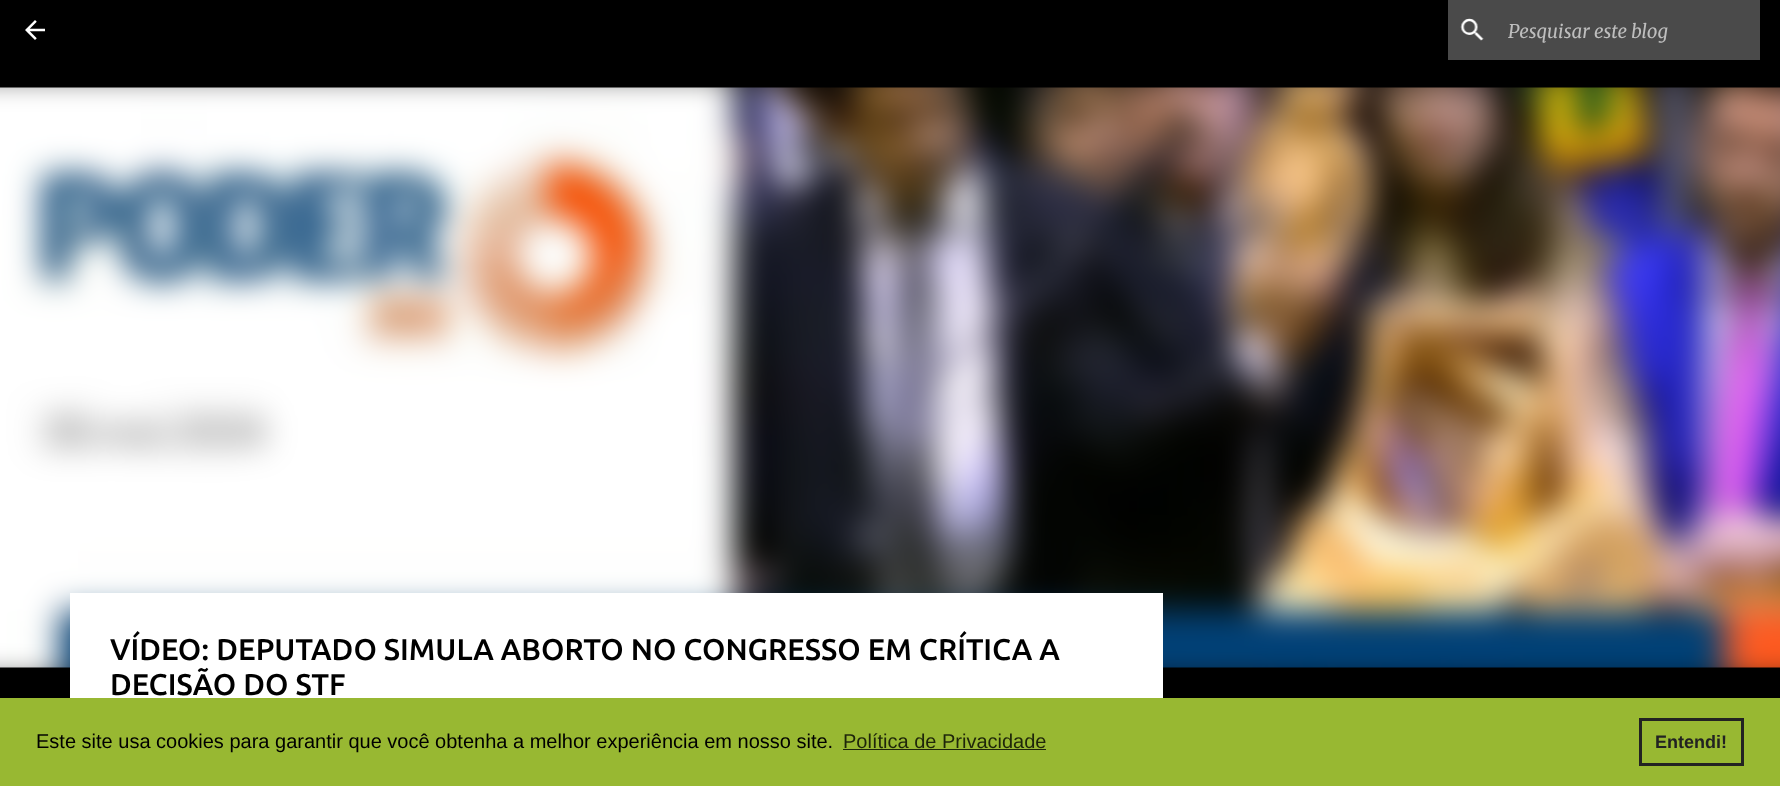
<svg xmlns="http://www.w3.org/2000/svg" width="1780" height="786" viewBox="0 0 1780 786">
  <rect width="100%" height="100%" fill="#000"/>
  <image x="25" y="20" width="20" height="20" href="img/1.png"/>
  <path d="M1448 0h312v60H1448z" fill="#4a4a4a"/>
  <image x="1460" y="18" width="24" height="23" href="img/2.png"/>
  <image x="0" y="87" width="1780" height="581" href="img/3.png"/>
  <path d="M70 593h1093v105H70z" fill="#fff"/>
  <path d="M0 698h1780v88H0z" fill="#98b832"/>
  <path d="M843 749h203v1H843z" fill="#1e250a"/>
  <path d="M1640.5 719.5h102v45H1640.5z" fill="none" stroke="#222" stroke-width="3"/>
  <text x="1508" y="38" font-family="Merriweather" font-size="18.75" font-style="italic" fill="#bebebe">Pesquisar este blog</text>
  <g font-family="Ubuntu" font-size="30" font-weight="500" fill="#000">
    <text x="110" y="660">VÍDEO: DEPUTADO SIMULA ABORTO NO CONGRESSO EM CRÍTICA A</text>
    <text x="110" y="695">DECISÃO DO STF</text>
  </g>
  <text x="36" y="748" font-family="Liberation Sans" font-size="20" fill="#000">Este site usa cookies para garantir que você obtenha a melhor experiência em nosso site.</text>
  <text x="843" y="748" font-family="Liberation Sans" font-size="20" fill="#1e250a">Política de Privacidade</text>
  <text x="1655" y="748" font-family="Liberation Sans" font-size="18" font-weight="bold" fill="#222">Entendi!</text>
</svg>
